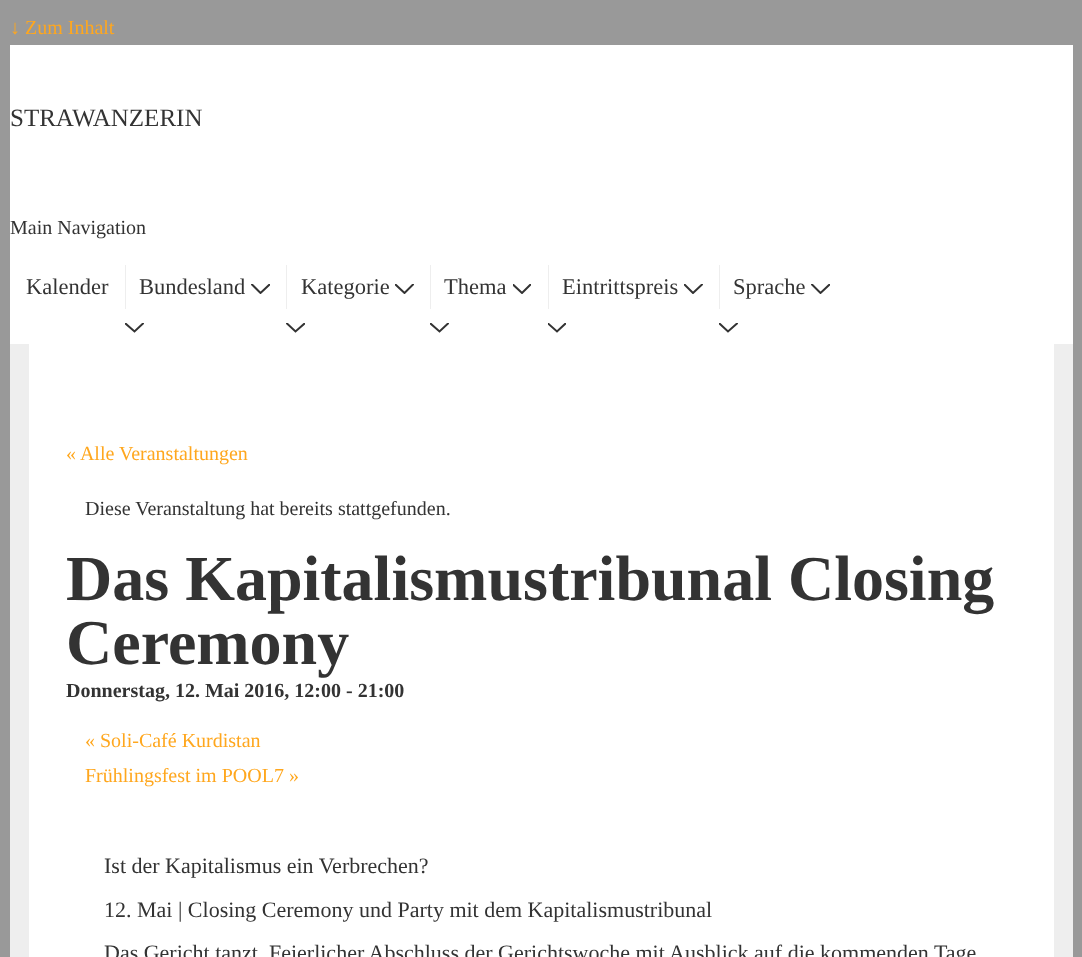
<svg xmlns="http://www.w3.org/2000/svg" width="1082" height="957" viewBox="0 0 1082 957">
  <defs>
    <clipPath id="clip1"><path d="M251 284h19v10H251z"/></clipPath>
    <clipPath id="clip2"><path d="M125 323h19v10H125z"/></clipPath>
    <clipPath id="clip3"><path d="M395 284h19v10H395z"/></clipPath>
    <clipPath id="clip4"><path d="M286 323h19v10H286z"/></clipPath>
    <clipPath id="clip5"><path d="M513 284h18v10H513z"/></clipPath>
    <clipPath id="clip6"><path d="M430 323h19v10H430z"/></clipPath>
    <clipPath id="clip7"><path d="M684 284h19v10H684z"/></clipPath>
    <clipPath id="clip8"><path d="M548 323h18v10H548z"/></clipPath>
    <clipPath id="clip9"><path d="M811 284h19v10H811z"/></clipPath>
    <clipPath id="clip10"><path d="M719 323h19v10H719z"/></clipPath>
  </defs>
  <rect width="100%" height="100%" fill="#999"/>
  <path d="M10 45h1063v299H10z" fill="#fff"/>
  <path d="M125 265h1v44H125z" fill="#eee"/>
  <g clip-path="url(#clip1)">
    <path d="M252 284.5L260.5 293L269.5 284.5" fill="none" stroke="#333" stroke-width="2" stroke-linecap="round"/>
  </g>
  <g clip-path="url(#clip2)">
    <path d="M125.5 323.5L134.5 331.5L143 323.5" fill="none" stroke="#333" stroke-width="2" stroke-linecap="round"/>
  </g>
  <path d="M286 265h1v44H286z" fill="#eee"/>
  <g clip-path="url(#clip3)">
    <path d="M395.5 284.5L404.5 293L413 284.5" fill="none" stroke="#333" stroke-width="2" stroke-linecap="round"/>
  </g>
  <g clip-path="url(#clip4)">
    <path d="M287 323.5L295.5 331.5L304.5 323.5" fill="none" stroke="#333" stroke-width="2" stroke-linecap="round"/>
  </g>
  <path d="M430 265h1v44H430z" fill="#eee"/>
  <g clip-path="url(#clip5)">
    <path d="M513 284.5L522 293L530.5 284.5" fill="none" stroke="#333" stroke-width="2" stroke-linecap="round"/>
  </g>
  <g clip-path="url(#clip6)">
    <path d="M430.5 323.5L439.5 331.5L448 323.5" fill="none" stroke="#333" stroke-width="2" stroke-linecap="round"/>
  </g>
  <path d="M548 265h1v44H548z" fill="#eee"/>
  <g clip-path="url(#clip7)">
    <path d="M684.5 284.5L693 293L702 284.5" fill="none" stroke="#333" stroke-width="2" stroke-linecap="round"/>
  </g>
  <g clip-path="url(#clip8)">
    <path d="M548 323.5L557 331.5L565.5 323.5" fill="none" stroke="#333" stroke-width="2" stroke-linecap="round"/>
  </g>
  <path d="M719 265h1v44H719z" fill="#eee"/>
  <g clip-path="url(#clip9)">
    <path d="M812 284.5L820.5 293L829.5 284.5" fill="none" stroke="#333" stroke-width="2" stroke-linecap="round"/>
  </g>
  <g clip-path="url(#clip10)">
    <path d="M719.5 323.5L728 331.5L737 323.5" fill="none" stroke="#333" stroke-width="2" stroke-linecap="round"/>
  </g>
  <path d="M10 344h1063v613H10z" fill="#eee"/>
  <path d="M29 344h1025v613H29z" fill="#fff"/>
  <text x="10" y="34" font-family="Liberation Serif" font-size="20" fill="#ffa71e">↓ Zum Inhalt</text>
  <text x="10" y="126" font-family="Liberation Serif" font-size="25" fill="#333">STRAWANZERIN</text>
  <text x="10" y="234" font-family="Liberation Serif" font-size="20" fill="#333">Main Navigation</text>
  <g font-family="Liberation Serif" font-size="22.5" fill="#333">
    <text x="26" y="294">Kalender</text>
    <text x="139" y="294">Bundesland</text>
    <text x="301" y="294">Kategorie</text>
    <text x="444" y="294">Thema</text>
    <text x="562" y="294">Eintrittspreis</text>
    <text x="733" y="294">Sprache</text>
  </g>
  <text x="66" y="460" font-family="Liberation Serif" font-size="20" fill="#ffa71e">« Alle Veranstaltungen</text>
  <text x="85" y="515" font-family="Liberation Serif" font-size="20" fill="#333">Diese Veranstaltung hat bereits stattgefunden.</text>
  <g font-family="Liberation Serif" font-size="64" font-weight="bold" fill="#333">
    <text x="66" y="600">Das Kapitalismustribunal Closing</text>
    <text x="66" y="664">Ceremony</text>
  </g>
  <text x="66" y="697" font-family="Liberation Serif" font-size="20" font-weight="bold" fill="#333">Donnerstag, 12. Mai 2016, 12:00 - 21:00</text>
  <g font-family="Liberation Serif" font-size="20" fill="#ffa71e">
    <text x="85" y="747">« Soli-Café Kurdistan</text>
    <text x="85" y="782">Frühlingsfest im POOL7 »</text>
  </g>
  <g font-family="Liberation Serif" font-size="22" fill="#333">
    <text x="104" y="873">Ist der Kapitalismus ein Verbrechen?</text>
    <text x="104" y="917">12. Mai | Closing Ceremony und Party mit dem Kapitalismustribunal</text>
    <text x="104" y="960">Das Gericht tanzt. Feierlicher Abschluss der Gerichtswoche mit Ausblick auf die kommenden Tage</text>
  </g>
</svg>
